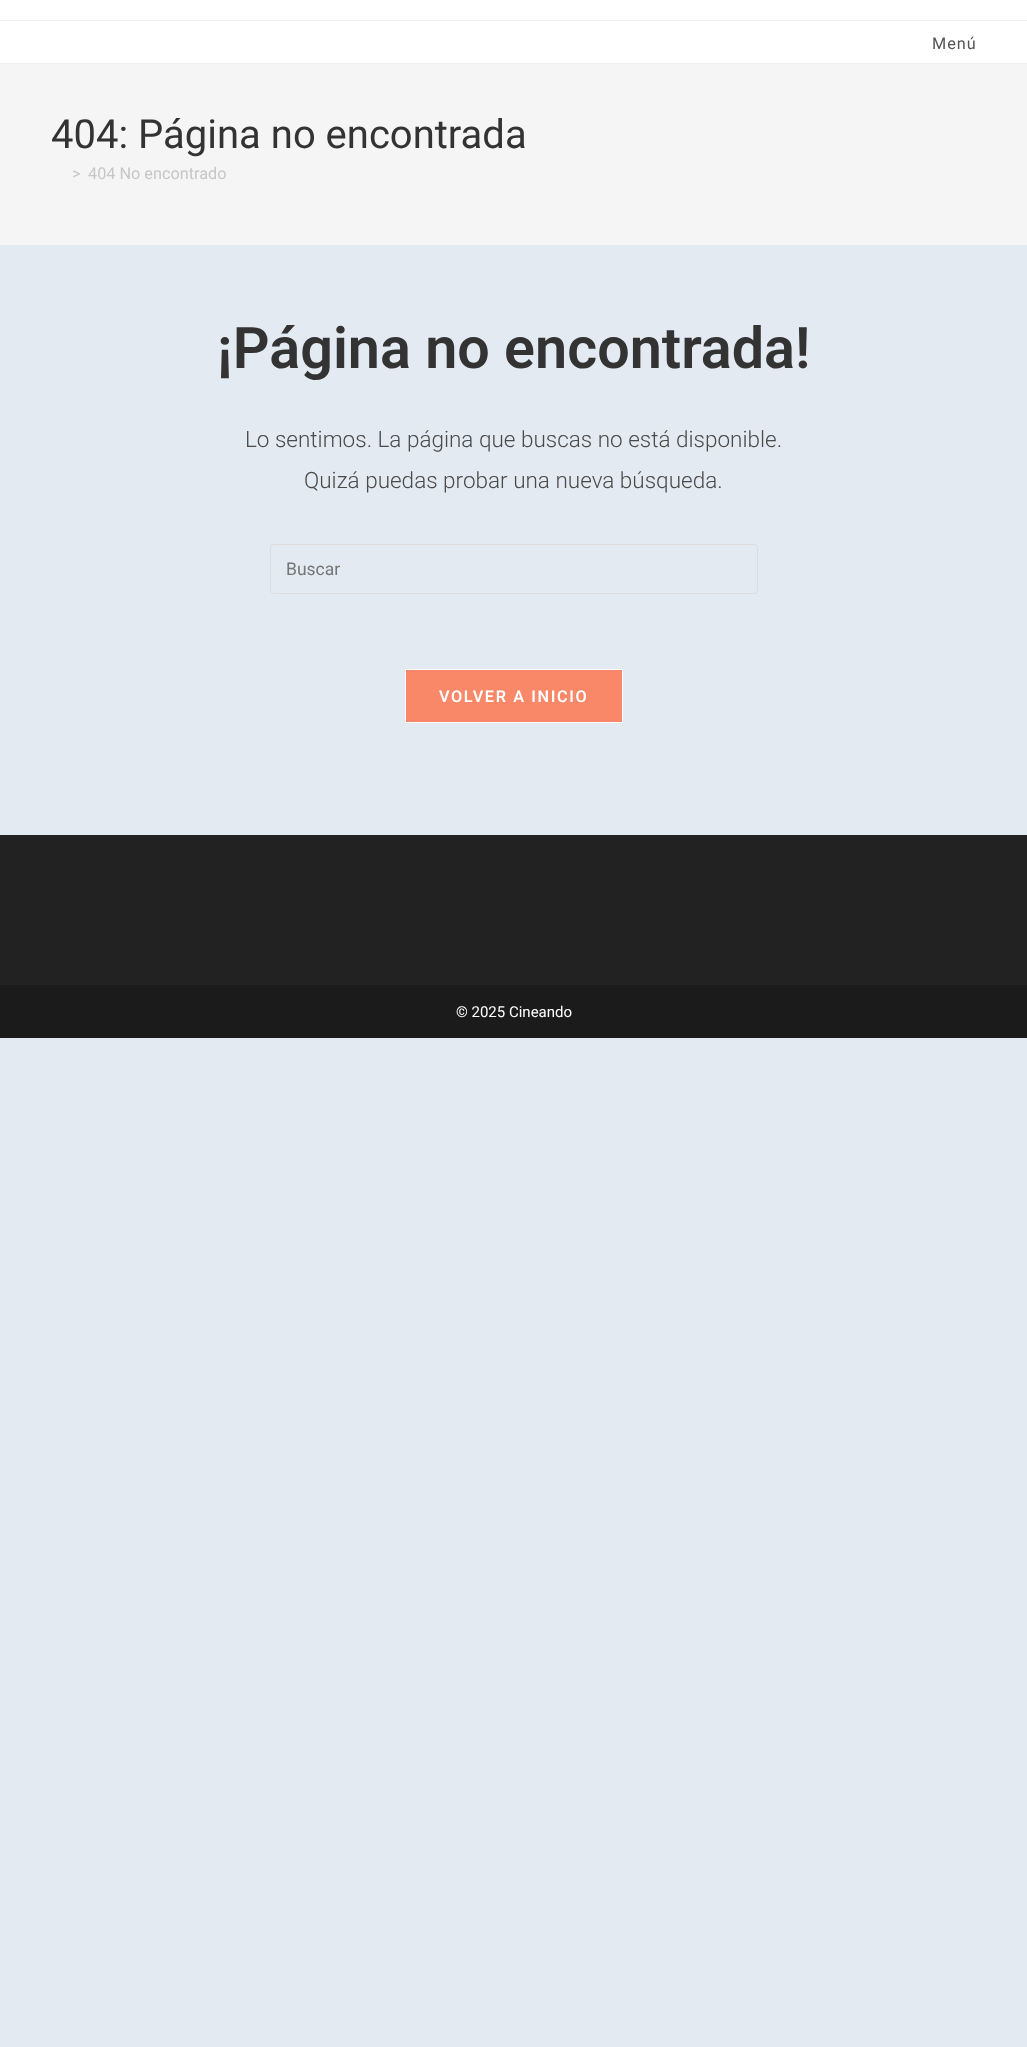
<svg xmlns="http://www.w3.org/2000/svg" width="1027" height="2047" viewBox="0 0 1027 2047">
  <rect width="100%" height="100%" fill="#e3eaf2"/>
  <path d="M0 0h1027v20H0z" fill="#fff"/>
  <path d="M0 20h1027v1H0z" fill="#f1f1f1"/>
  <path d="M0 21h1027v42H0z" fill="#fff"/>
  <path d="M0 63h1027v1H0z" fill="#f1f1f1"/>
  <path d="M0 64h1027v181H0z" fill="#f5f5f5"/>
  <rect x="270.5" y="544.5" width="487" height="49" rx="3.5" fill="none" stroke="#ddd"/>
  <path d="M405.5 669.5h217v53H405.5z" fill="#f98869" stroke="#fff"/>
  <path d="M0 835h1027v150H0z" fill="#222"/>
  <path d="M0 985h1027v53H0z" fill="#1b1b1b"/>
  <text x="932" y="49" font-family="Roboto" font-size="16.25" letter-spacing="1" fill="#555">Menú</text>
  <text x="51" y="148" font-family="Roboto" font-size="40" fill="#333">404: Página no encontrada</text>
  <g font-family="Roboto" font-size="16.25" fill="#c6c6c6">
    <text x="72" y="179">&gt;</text>
    <text x="88" y="179">404 No encontrado</text>
  </g>
  <text x="217" y="368" font-family="Roboto" font-size="57.5" font-weight="600" fill="#333">¡Página no encontrada!</text>
  <g font-family="Roboto" font-size="22.5" font-weight="300" fill="#4a4a4a">
    <text x="245" y="447">Lo sentimos. La página que buscas no está disponible.</text>
    <text x="304" y="488">Quizá puedas probar una nueva búsqueda.</text>
  </g>
  <text x="286" y="575" font-family="Roboto" font-size="17.5" fill="#757575">Buscar</text>
  <text x="439" y="702" font-family="Roboto" font-size="16.25" font-weight="600" letter-spacing="1.6" fill="#fff">VOLVER A INICIO</text>
  <text x="456" y="1017" font-family="Roboto" font-size="15" fill="#fff">© 2025 Cineando</text>
</svg>
